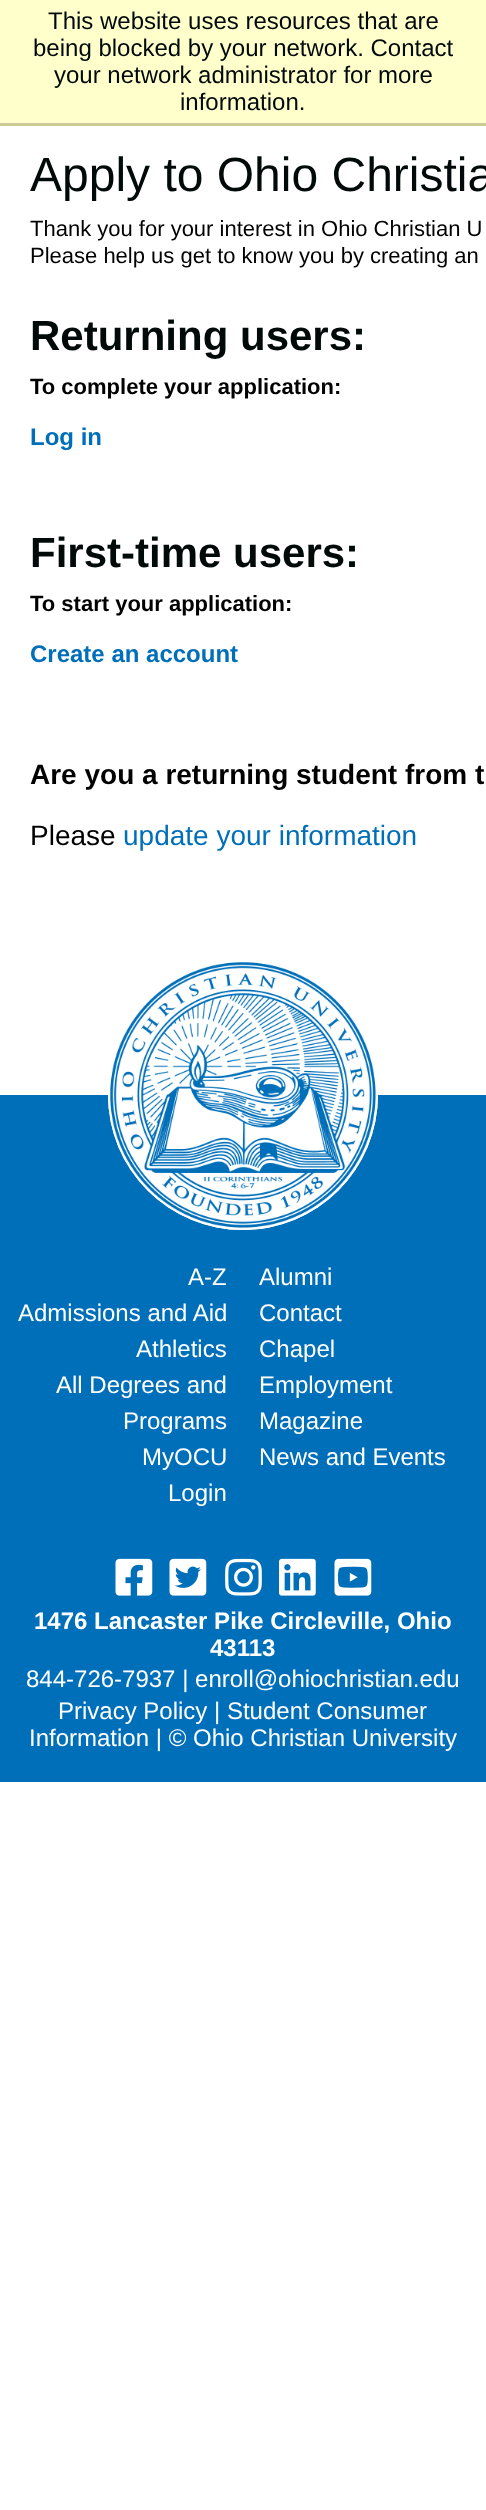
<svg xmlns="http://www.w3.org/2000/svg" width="486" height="2510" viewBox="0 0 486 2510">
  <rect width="100%" height="100%" fill="#fff"/>
  <path d="M0 0h486v123H0z" fill="#ffc"/>
  <path d="M0 123h486v3H0z" fill="#cc9"/>
  <path d="M0 1095h486v687H0z" fill="#006fb9"/>
  <circle cx="243" cy="1095" r="135" fill="#fff"/>
  <image x="108" y="962" width="270" height="268" href="img/1.png"/>
  <image x="115" y="1558" width="38" height="38" href="img/2.png"/>
  <image x="169" y="1558" width="38" height="38" href="img/3.png"/>
  <image x="225" y="1558" width="37" height="38" href="img/4.png"/>
  <image x="279" y="1558" width="37" height="38" href="img/5.png"/>
  <image x="334" y="1558" width="38" height="38" href="img/6.png"/>
  <g font-family="Liberation Sans" font-size="24" fill="#020a09">
    <text x="48" y="29">This website uses resources that are</text>
    <text x="33" y="56">being blocked by your network. Contact</text>
    <text x="54" y="83">your network administrator for more</text>
    <text x="180" y="110">information.</text>
  </g>
  <text x="30" y="191" font-family="Liberation Sans" font-size="48" fill="#020a09">Apply to Ohio Christia</text>
  <g font-family="Liberation Sans" font-size="22" fill="#000">
    <text x="30" y="236">Thank you for your interest in Ohio Christian U</text>
    <text x="30" y="263">Please help us get to know you by creating an</text>
  </g>
  <text x="30" y="350" font-family="Liberation Sans" font-size="42" font-weight="bold" fill="#020a09">Returning users:</text>
  <text x="30" y="394" font-family="Liberation Sans" font-size="22" font-weight="bold" fill="#000">To complete your application:</text>
  <text x="30" y="445" font-family="Liberation Sans" font-size="24" font-weight="bold" fill="#006fb9">Log in</text>
  <text x="30" y="567" font-family="Liberation Sans" font-size="42" font-weight="bold" fill="#020a09">First-time users:</text>
  <text x="30" y="611" font-family="Liberation Sans" font-size="22" font-weight="bold" fill="#000">To start your application:</text>
  <text x="30" y="662" font-family="Liberation Sans" font-size="24" font-weight="bold" fill="#006fb9">Create an account</text>
  <text x="30" y="784" font-family="Liberation Sans" font-size="28" font-weight="bold" fill="#000">Are you a returning student from t</text>
  <text x="30" y="845" font-family="Liberation Sans" font-size="28" fill="#000">Please</text>
  <text x="123" y="845" font-family="Liberation Sans" font-size="28" fill="#006fb9">update your information</text>
  <g font-family="Liberation Sans" font-size="24" fill="#fff">
    <text x="188" y="1285">A-Z</text>
    <text x="18" y="1321">Admissions and Aid</text>
    <text x="136" y="1357">Athletics</text>
    <text x="56" y="1393">All Degrees and</text>
    <text x="123" y="1429">Programs</text>
    <text x="142" y="1465">MyOCU</text>
    <text x="168" y="1501">Login</text>
    <text x="259" y="1285">Alumni</text>
    <text x="259" y="1321">Contact</text>
    <text x="259" y="1357">Chapel</text>
    <text x="259" y="1393">Employment</text>
    <text x="259" y="1429">Magazine</text>
    <text x="259" y="1465">News and Events</text>
  </g>
  <g font-family="Liberation Sans" font-size="24" font-weight="bold" fill="#fff">
    <text x="34" y="1629">1476 Lancaster Pike Circleville, Ohio</text>
    <text x="210" y="1656">43113</text>
  </g>
  <g font-family="Liberation Sans" font-size="24" fill="#fff">
    <text x="26" y="1687">844-726-7937 | enroll@ohiochristian.edu</text>
    <text x="58" y="1719">Privacy Policy | Student Consumer</text>
    <text x="29" y="1746">Information | © Ohio Christian University</text>
  </g>
</svg>
